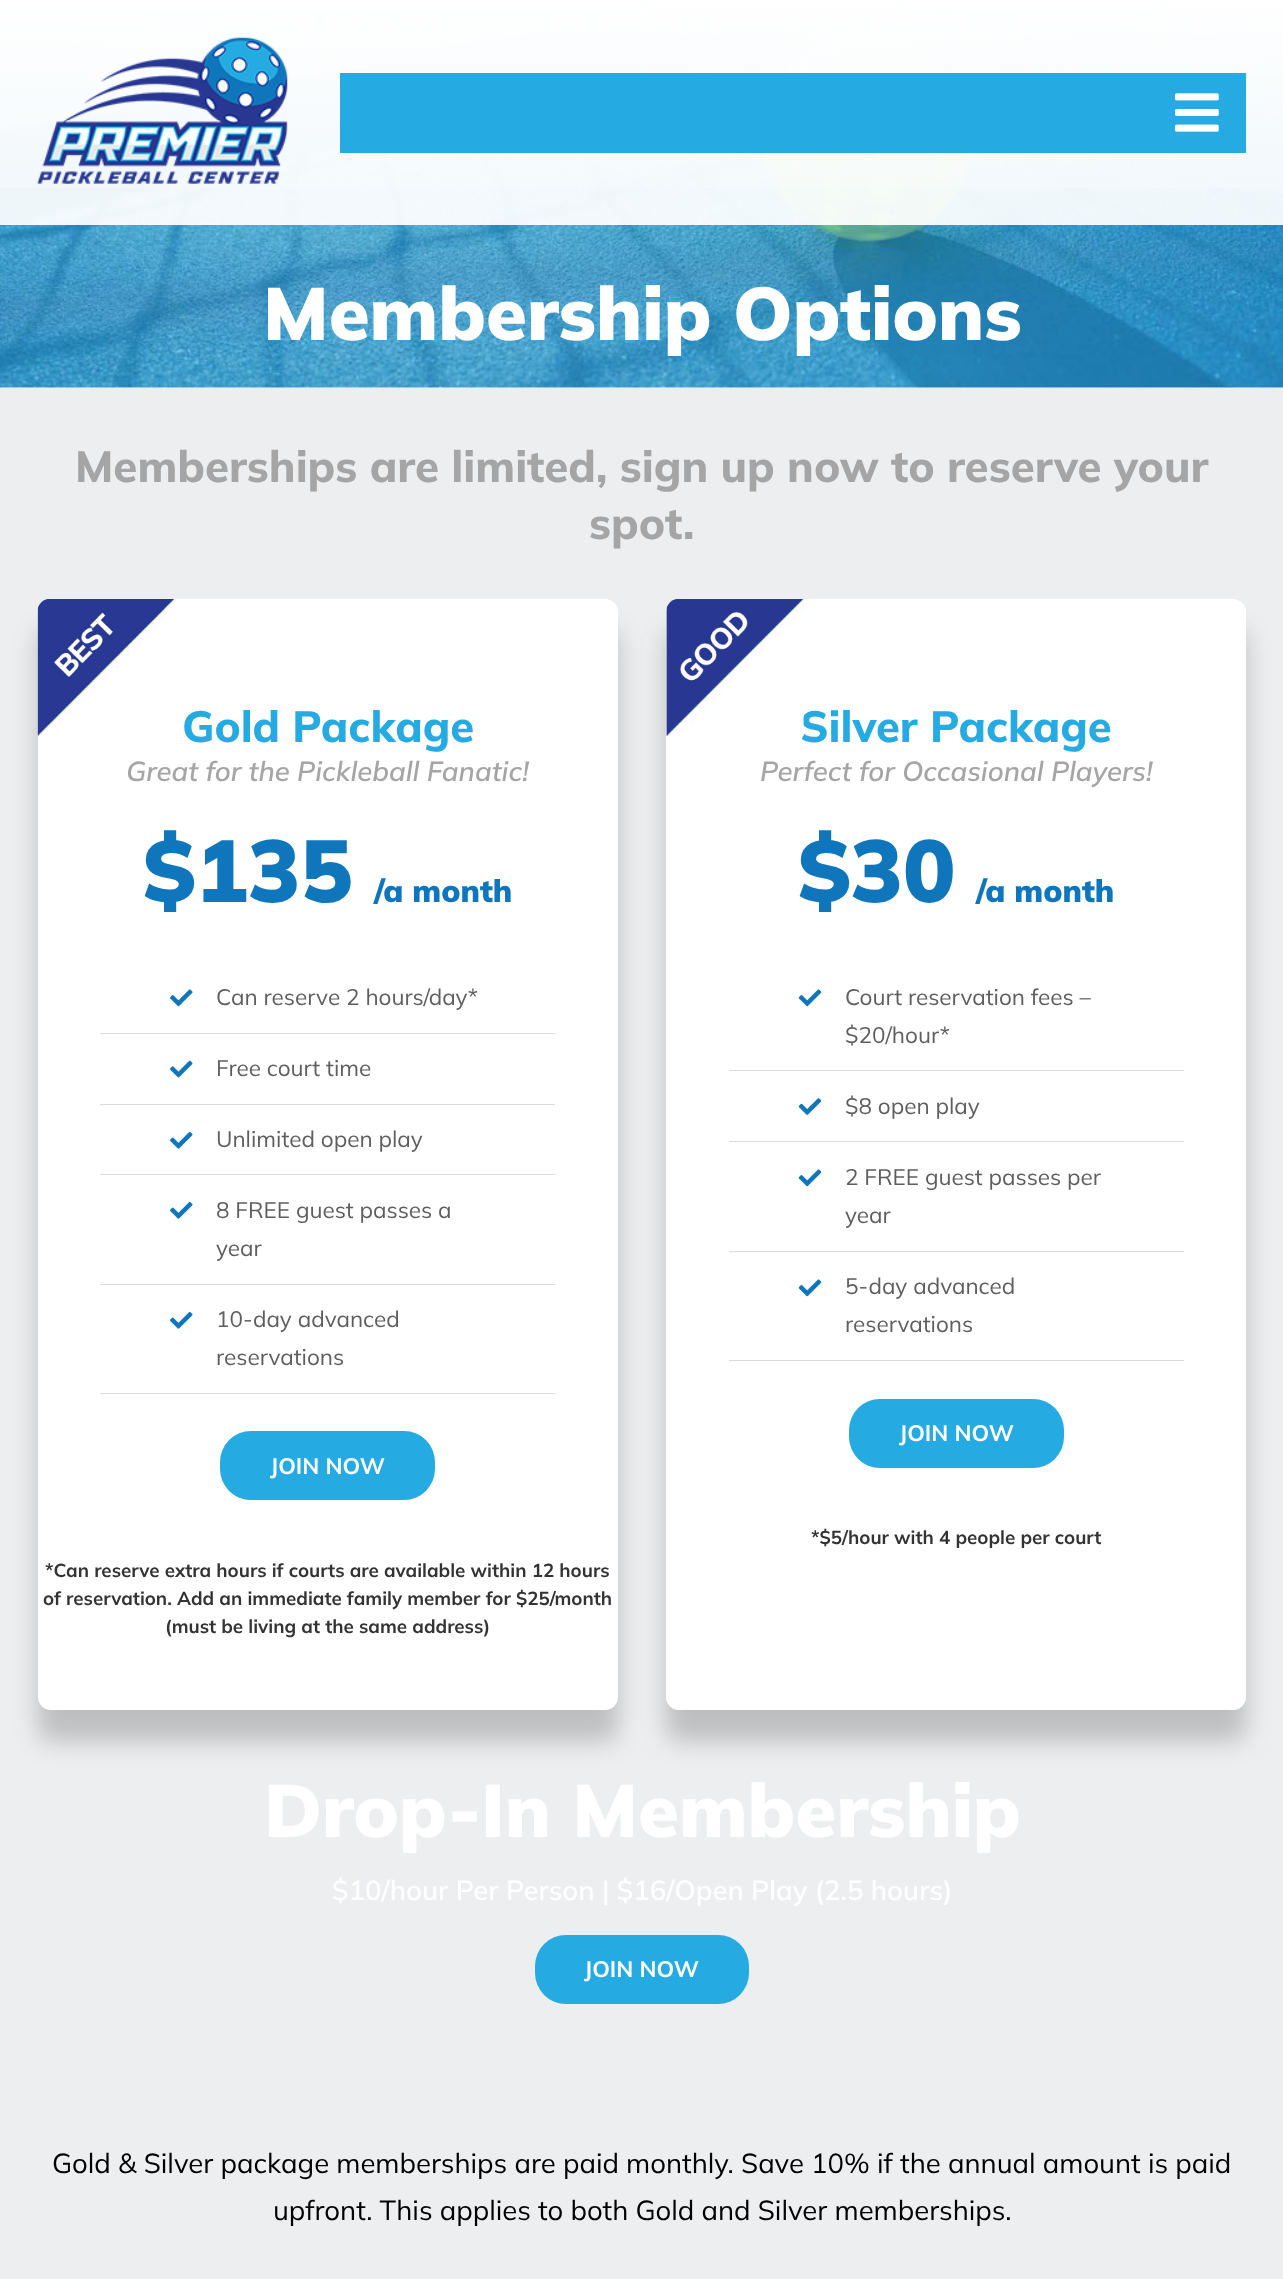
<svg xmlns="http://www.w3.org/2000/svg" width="1283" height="2279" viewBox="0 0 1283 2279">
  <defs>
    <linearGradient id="g1" gradientUnits="userSpaceOnUse" x1="642" y1="0" x2="642" y2="225"><stop offset="0" stop-color="#fff"/><stop offset="1" stop-color="#fff" stop-opacity="0"/></linearGradient>
  </defs>
  <rect width="100%" height="100%" fill="#fff"/>
  <image x="0" y="1" width="1283" height="387" href="img/3.png"/>
  <path d="M0 1h1283v224H0z" fill="#ffffffed"/>
  <path d="M0 1h1283v187H0z" fill="url(#g1)"/>
  <image x="37" y="37" width="251" height="147" href="img/1.png"/>
  <path d="M340 73h906v80H340z" fill="#25aae1"/>
  <image x="1175" y="93" width="44" height="39" href="img/2.png"/>
  <path d="M0 388h1283v1891H0z" fill="#eceeef"/>
  <rect x="38" y="630" width="580" height="1111" rx="13" fill="#3d3d3d45" filter="blur(12.5px)"/>
  <rect x="38" y="599" width="580" height="1111" rx="13" fill="#fff"/>
  <image x="37" y="599" width="138" height="137" href="img/4.png"/>
  <path d="M100 1033h455v1H100z" fill="#dbdbdb"/>
  <image x="170" y="989" width="23" height="18" href="img/5.png"/>
  <path d="M100 1104h455v1H100z" fill="#dbdbdb"/>
  <image x="170" y="1060" width="23" height="18" href="img/6.png"/>
  <path d="M100 1174h455v1H100z" fill="#dbdbdb"/>
  <image x="170" y="1131" width="23" height="18" href="img/7.png"/>
  <path d="M100 1284h455v1H100z" fill="#dbdbdb"/>
  <image x="170" y="1201" width="23" height="18" href="img/7.png"/>
  <path d="M100 1393h455v1H100z" fill="#dbdbdb"/>
  <image x="170" y="1311" width="23" height="18" href="img/7.png"/>
  <rect x="220" y="1431" width="215" height="69" rx="31" fill="#25aae1"/>
  <rect x="666" y="630" width="580" height="1111" rx="13" fill="#3d3d3d45" filter="blur(12.5px)"/>
  <rect x="666" y="599" width="580" height="1111" rx="13" fill="#fff"/>
  <path d="M729 1070h455v1H729z" fill="#dbdbdb"/>
  <image x="798" y="989" width="24" height="18" href="img/9.png"/>
  <path d="M729 1141h455v1H729z" fill="#dbdbdb"/>
  <image x="798" y="1098" width="24" height="17" href="img/10.png"/>
  <path d="M729 1251h455v1H729z" fill="#dbdbdb"/>
  <image x="798" y="1169" width="24" height="18" href="img/9.png"/>
  <path d="M729 1360h455v1H729z" fill="#dbdbdb"/>
  <image x="798" y="1279" width="24" height="18" href="img/9.png"/>
  <rect x="849" y="1399" width="215" height="69" rx="31" fill="#25aae1"/>
  <rect x="535" y="1935" width="214" height="69" rx="31" fill="#25aae1"/>
  <text x="263" y="340" font-family="Mulish" font-size="74.25" font-weight="900" fill="#fff">Membership Options</text>
  <g font-family="Mulish" font-size="43.75" font-weight="800" fill="#a5a5a5">
    <text x="75" y="482">Memberships are limited, sign up now to reserve your</text>
    <text x="589" y="539">spot.</text>
  </g>
  <text x="182" y="742" font-family="Mulish" font-size="43.5" font-weight="800" fill="#25aae1">Gold Package</text>
  <text x="126" y="781" font-family="Mulish" font-size="27.5" font-weight="600" font-style="italic" fill="#a5a5a5">Great for the Pickleball Fanatic!</text>
  <text x="143" y="902" font-family="Mulish" font-size="87.5" font-weight="900" fill="#1076bc">$135</text>
  <text x="374" y="902" font-family="Mulish" font-size="31.25" font-weight="900" fill="#1076bc">/a month</text>
  <g font-family="Mulish" font-size="22.5" fill="#5e5e5e">
    <text x="216" y="1005">Can reserve 2 hours/day*</text>
    <text x="216" y="1076">Free court time</text>
    <text x="216" y="1147">Unlimited open play</text>
    <text x="216" y="1218">8 FREE guest passes a</text>
    <text x="216" y="1256">year</text>
    <text x="216" y="1327">10-day advanced</text>
    <text x="216" y="1365">reservations</text>
  </g>
  <text x="270" y="1474" font-family="Mulish" font-size="22.5" font-weight="bold" fill="#fff">JOIN NOW</text>
  <g font-family="Mulish" font-size="18.75" font-weight="bold" fill="#333">
    <text x="45" y="1577">*Can reserve extra hours if courts are available within 12 hours</text>
    <text x="43" y="1605">of reservation. Add an immediate family member for $25/month</text>
    <text x="165" y="1633">(must be living at the same address)</text>
  </g>
  <text x="800" y="742" font-family="Mulish" font-size="43.5" font-weight="800" fill="#25aae1">Silver Package</text>
  <image x="666" y="599" width="138" height="138" href="img/8.png"/>
  <text x="760" y="781" font-family="Mulish" font-size="27.5" font-weight="600" font-style="italic" fill="#a5a5a5">Perfect for Occasional Players!</text>
  <text x="798" y="902" font-family="Mulish" font-size="87.5" font-weight="900" fill="#1076bc">$30</text>
  <text x="976" y="902" font-family="Mulish" font-size="31.25" font-weight="900" fill="#1076bc">/a month</text>
  <g font-family="Mulish" font-size="22.5" fill="#5e5e5e">
    <text x="845" y="1005">Court reservation fees –</text>
    <text x="845" y="1043">$20/hour*</text>
    <text x="845" y="1114">$8 open play</text>
    <text x="845" y="1185">2 FREE guest passes per</text>
    <text x="845" y="1223">year</text>
    <text x="845" y="1294">5-day advanced</text>
    <text x="845" y="1332">reservations</text>
  </g>
  <text x="899" y="1441" font-family="Mulish" font-size="22.5" font-weight="bold" fill="#fff">JOIN NOW</text>
  <text x="811" y="1544" font-family="Mulish" font-size="18.75" font-weight="bold" fill="#333">*$5/hour with 4 people per court</text>
  <text x="264" y="1837" font-family="Mulish" font-size="74.25" font-weight="900" fill="#fff">Drop-In Membership</text>
  <text x="332" y="1900" font-family="Mulish" font-size="27.5" font-weight="600" fill="#fff">$10/hour Per Person | $16/Open Play (2.5 hours)</text>
  <text x="584" y="1977" font-family="Mulish" font-size="22.5" font-weight="bold" fill="#fff">JOIN NOW</text>
  <g font-family="Mulish" font-size="27.5" fill="#000">
    <text x="52" y="2173">Gold &amp; Silver package memberships are paid monthly. Save 10% if the annual amount is paid</text>
    <text x="273" y="2220">upfront. This applies to both Gold and Silver memberships.</text>
  </g>
</svg>
